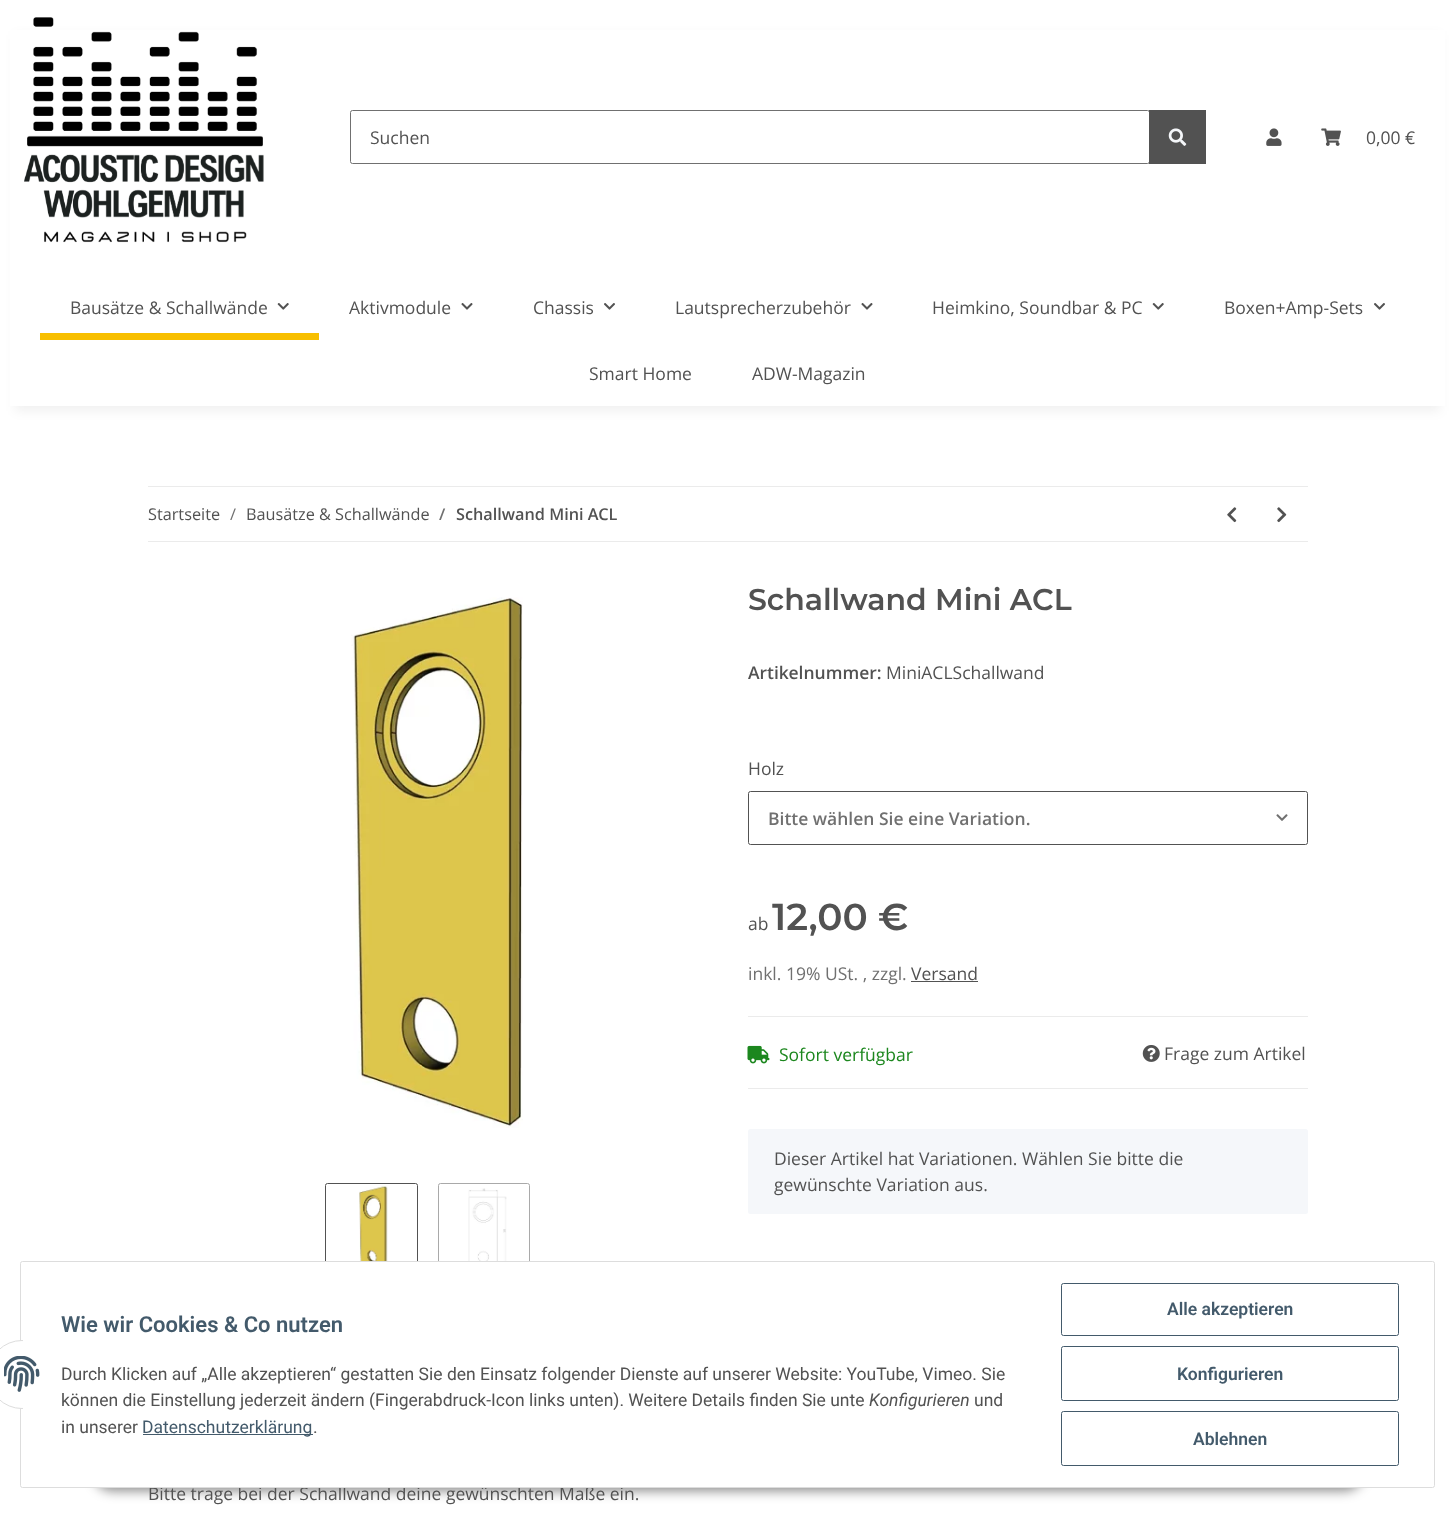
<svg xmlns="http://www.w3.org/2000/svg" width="1455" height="1527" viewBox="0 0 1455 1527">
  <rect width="100%" height="100%" fill="#fff"/>
  <path d="M15 35h1425v376H15z" fill="#0000000f" filter="blur(5.5px)"/>
  <path d="M10 30h1435v376H10z" fill="#fff"/>
  <image x="24" y="17" width="240" height="226" href="img/1.png"/>
  <rect x="350.5" y="110.5" width="799" height="53" rx="2" fill="none" stroke="#707070"/>
  <path d="M1149 110h57v54H1149z" fill="#525252"/>
  <image x="1168" y="128" width="19" height="18" href="img/2.png"/>
  <image x="1266" y="128" width="16" height="18" href="img/3.png"/>
  <image x="1321" y="128" width="20" height="18" href="img/4.png"/>
  <image x="277" y="303" width="12" height="7" href="img/5.png"/>
  <path d="M40 333h279v7H40z" fill="#f8bf00"/>
  <image x="461" y="303" width="12" height="7" href="img/6.png"/>
  <image x="604" y="303" width="11" height="7" href="img/7.png"/>
  <image x="861" y="303" width="12" height="7" href="img/6.png"/>
  <image x="1152" y="303" width="12" height="7" href="img/5.png"/>
  <image x="1374" y="303" width="11" height="7" href="img/7.png"/>
  <path d="M148 486h1160v1H148z" fill="#ebebeb"/>
  <path d="M148 541h1160v1H148z" fill="#ebebeb"/>
  <image x="1227" y="507" width="10" height="16" href="img/8.png"/>
  <image x="1277" y="507" width="10" height="16" href="img/9.png"/>
  <image x="351" y="597" width="172" height="531" href="img/10.png"/>
  <rect x="325.5" y="1183.5" width="92" height="91" rx="2" fill="none" stroke="#525252"/>
  <image x="359" y="1185" width="29" height="76" href="img/11.png"/>
  <rect x="438.5" y="1183.5" width="91" height="91" rx="2" fill="none" stroke="#a9a9a9"/>
  <image x="468" y="1188" width="39" height="73" href="img/12.png"/>
  <rect x="748.5" y="791.5" width="559" height="53" rx="2" fill="none" stroke="#525252"/>
  <image x="1276" y="814" width="12" height="7" href="img/13.png"/>
  <path d="M911 981h67v1H911z" fill="#525252"/>
  <path d="M748 1016h560v1H748z" fill="#ebebeb"/>
  <path d="M748 1088h560v1H748z" fill="#ebebeb"/>
  <image x="747" y="1045" width="23" height="19" href="img/14.png"/>
  <image x="1142" y="1045" width="18" height="17" href="img/15.png"/>
  <rect x="748" y="1129" width="560" height="85" rx="2.5" fill="#f5f7fa"/>
  <rect x="93" y="1451" width="1271" height="40" rx="20" fill="#00000073" filter="blur(6px)"/>
  <g font-family="Open Sans" font-size="17.5" fill="#525252">
    <text x="370" y="144">Suchen</text>
    <text x="1366" y="144">0,00 €</text>
    <text x="70" y="314">Bausätze &amp; Schallwände</text>
    <text x="349" y="314">Aktivmodule</text>
    <text x="533" y="314">Chassis</text>
    <text x="675" y="314">Lautsprecherzubehör</text>
    <text x="932" y="314">Heimkino, Soundbar &amp; PC</text>
    <text x="1224" y="314">Boxen+Amp-Sets</text>
    <text x="589" y="380">Smart Home</text>
    <text x="752" y="380">ADW-Magazin</text>
  </g>
  <text x="148" y="520" font-family="Open Sans" font-size="16.25" fill="#525252">Startseite</text>
  <text x="230" y="520" font-family="Open Sans" font-size="16.25" fill="#707070">/</text>
  <text x="246" y="520" font-family="Open Sans" font-size="16.25" fill="#525252">Bausätze &amp; Schallwände</text>
  <text x="439" y="520" font-family="Open Sans" font-size="16.25" font-weight="600" fill="#707070">/</text>
  <text x="456" y="520" font-family="Open Sans" font-size="16.25" font-weight="600" fill="#525252">Schallwand Mini ACL</text>
  <text x="748" y="610" font-family="Montserrat" font-size="30" font-weight="600" fill="#525252">Schallwand Mini ACL</text>
  <text x="748" y="679" font-family="Open Sans" font-size="17.5" font-weight="600" fill="#525252">Artikelnummer:</text>
  <g font-family="Open Sans" font-size="17.5" fill="#525252">
    <text x="886" y="679">MiniACLSchallwand</text>
    <text x="748" y="775">Holz</text>
  </g>
  <text x="768" y="825" font-family="Open Sans" font-size="17.5" font-weight="600" fill="#707070">Bitte wählen Sie eine Variation.</text>
  <text x="748" y="930" font-family="Open Sans" font-size="17.5" fill="#525252">ab</text>
  <text x="772" y="930" font-family="Montserrat" font-size="37.5" font-weight="600" fill="#525252">12,00 €</text>
  <text x="748" y="980" font-family="Open Sans" font-size="17.5" fill="#707070">inkl. 19% USt. , zzgl.</text>
  <text x="911" y="980" font-family="Open Sans" font-size="17.5" fill="#525252">Versand</text>
  <text x="779" y="1061" font-family="Open Sans" font-size="17.5" fill="#1c871e">Sofort verfügbar</text>
  <g font-family="Open Sans" font-size="17.5" fill="#525252">
    <text x="1164" y="1060">Frage zum Artikel</text>
    <text x="774" y="1165">Dieser Artikel hat Variationen. Wählen Sie bitte die</text>
    <text x="774" y="1191">gewünschte Variation aus.</text>
    <text x="148" y="1500">Bitte trage bei der Schallwand deine gewünschten Maße ein.</text>
  </g>
  <rect x="20.5" y="1261.5" width="1414" height="226" rx="2" fill="#fff" stroke="#ddd"/>
  <rect x="-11.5" y="1340.5" width="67" height="68" rx="33.5" fill="#fff" stroke="#ddd"/>
  <path d="M23 1340h33v69H23z" fill="#fff"/>
  <image x="4" y="1356" width="36" height="36" href="img/16.png"/>
  <text x="61" y="1332" font-family="Roboto" font-size="22" font-weight="600" fill="#435a6b">Wie wir Cookies &amp; Co nutzen</text>
  <g font-family="Roboto" font-size="17.5" fill="#525252">
    <text x="61" y="1380">Durch Klicken auf „Alle akzeptieren“ gestatten Sie den Einsatz folgender Dienste auf unserer Website: YouTube, Vimeo. Sie</text>
    <text x="61" y="1406">können die Einstellung jederzeit ändern (Fingerabdruck-Icon links unten). Weitere Details finden Sie unte</text>
  </g>
  <text x="869" y="1406" font-family="Roboto" font-size="17.5" font-style="italic" fill="#525252">Konfigurieren</text>
  <g font-family="Roboto" font-size="17.5" fill="#525252">
    <text x="974" y="1406">und</text>
    <text x="61" y="1433">in unserer</text>
  </g>
  <path d="M143 1434h170v1H143z" fill="#435a6b"/>
  <text x="142" y="1433" font-family="Roboto" font-size="17.5" fill="#435a6b">Datenschutzerklärung</text>
  <text x="313" y="1433" font-family="Roboto" font-size="17.5" fill="#525252">.</text>
  <rect x="1061.5" y="1283.5" width="337" height="52" rx="2" fill="none" stroke="#435a6b"/>
  <text x="1167" y="1315" font-family="Roboto" font-size="17.5" font-weight="600" fill="#435a6b">Alle akzeptieren</text>
  <rect x="1061.5" y="1346.5" width="337" height="54" rx="2" fill="none" stroke="#435a6b"/>
  <text x="1177" y="1380" font-family="Roboto" font-size="17.5" font-weight="600" fill="#435a6b">Konfigurieren</text>
  <rect x="1061.5" y="1411.5" width="337" height="54" rx="2" fill="none" stroke="#435a6b"/>
  <text x="1193" y="1445" font-family="Roboto" font-size="17.5" font-weight="600" fill="#435a6b">Ablehnen</text>
</svg>
